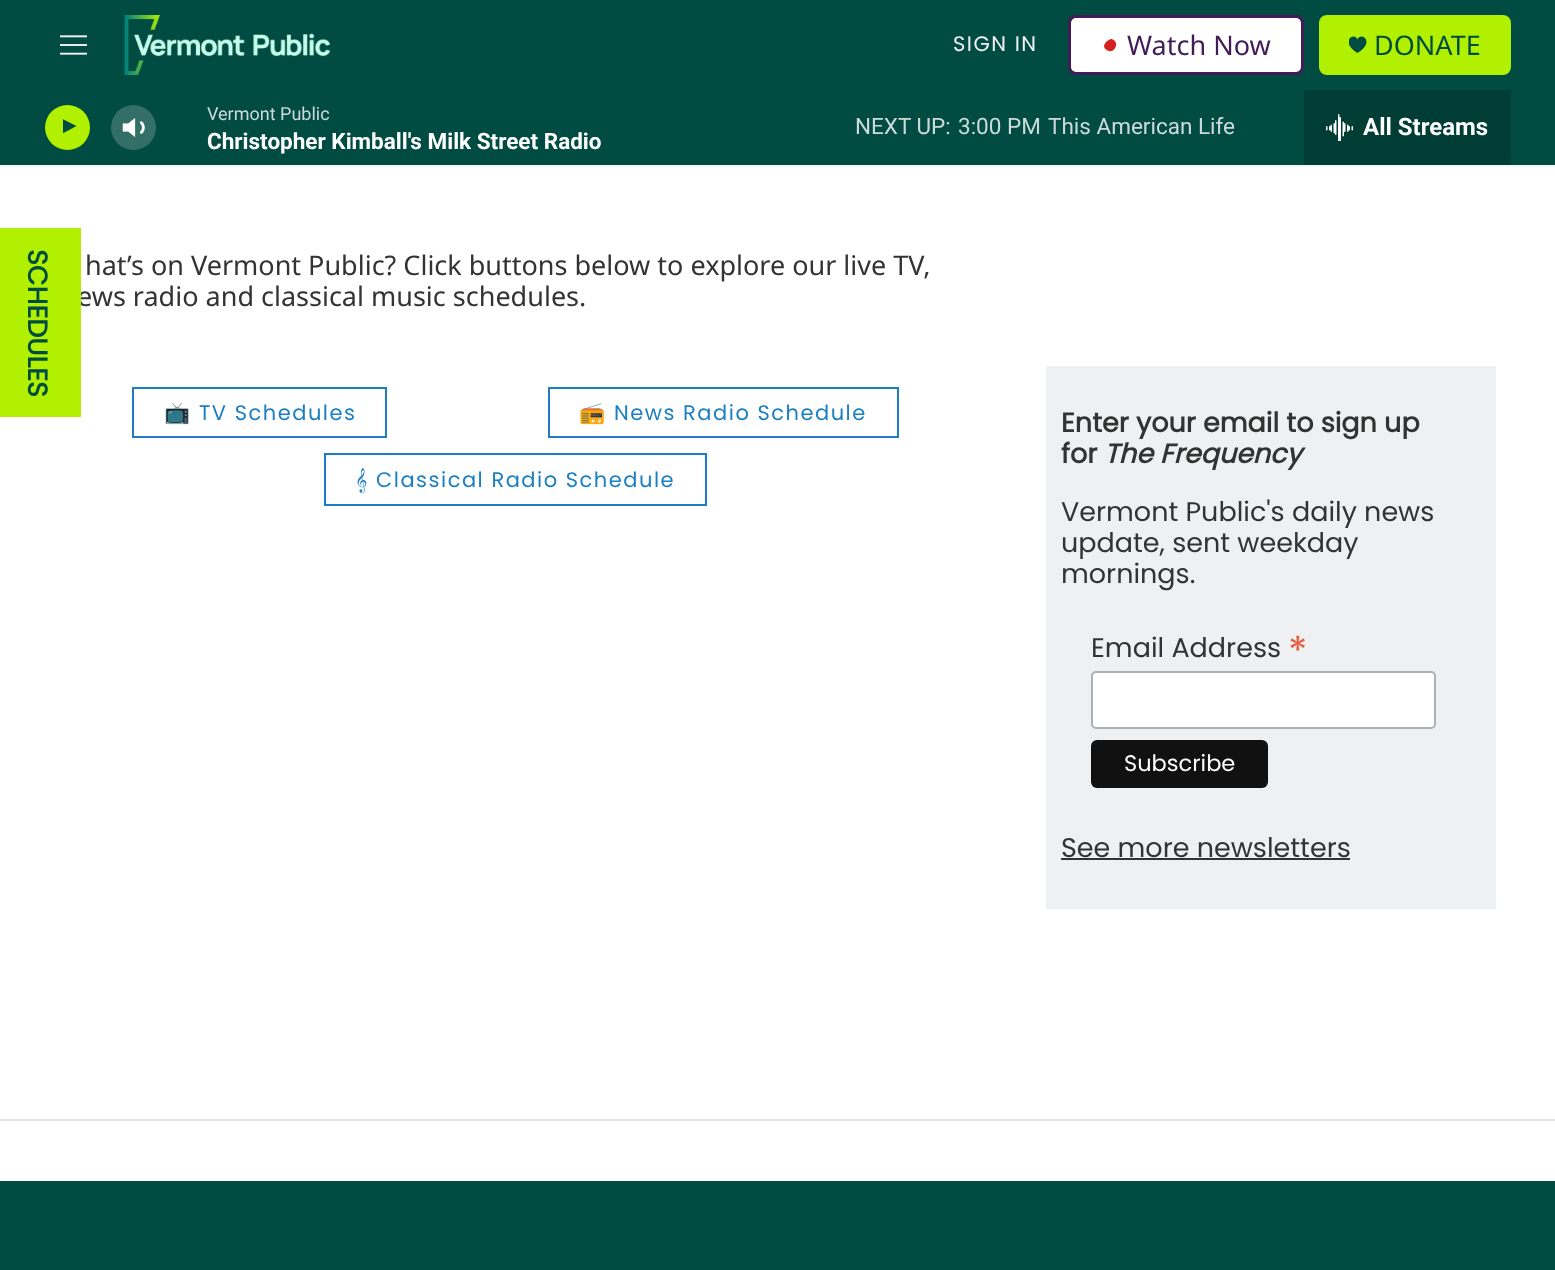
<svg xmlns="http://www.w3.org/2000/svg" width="1555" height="1270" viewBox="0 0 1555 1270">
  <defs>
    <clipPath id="clip1"><path d="M1349 36h18v18H1349z"/></clipPath>
    <clipPath id="clip2"><path d="M63 117h17v23H63z"/></clipPath>
  </defs>
  <rect width="100%" height="100%" fill="#fff"/>
  <path d="M0 0h1555v165H0z" fill="#004c42"/>
  <path d="M0 165h1555v2H0z" fill="#f5f5f5"/>
  <image x="60" y="35" width="27" height="20" href="img/1.png"/>
  <image x="124" y="15" width="206" height="60" href="img/2.png"/>
  <rect x="1069.5" y="16.5" width="233" height="57" rx="6.5" fill="#fff" stroke="#411c58" stroke-width="3"/>
  <path d="M1111.5 39C1121 41.5 1114 56 1106 49.5C1105.5 49 1104 47.5 1104 46.5C1104 43 1108 39.5 1111.5 39Z" fill="#d62021"/>
  <rect x="1319" y="15" width="192" height="60" rx="8" fill="#b1f000"/>
  <g clip-path="url(#clip1)">
    <path d="M1357.5 39.5C1354.5 31.5 1339 41.5 1357.5 53C1376 41.5 1360.5 31.5 1357.5 39.5Z" fill="#004c42"/>
  </g>
  <circle cx="67.5" cy="127.5" r="22.5" fill="#b1f000"/>
  <g clip-path="url(#clip2)">
    <path d="M62.5 119L76.5 126L62.5 133.5Z" fill="#004c42"/>
  </g>
  <image x="122" y="118" width="23" height="19" href="img/3.png"/>
  <circle cx="133.5" cy="127.5" r="22.5" fill="#ffffff33"/>
  <path d="M1304 90h207v75H1304z" fill="#003d35"/>
  <image x="1326" y="114" width="27" height="27" href="img/4.png"/>
  <path d="M133 388h253v49H133z" fill="none" stroke="#1a7fc3" stroke-width="2"/>
  <path d="M549 388h349v49H549z" fill="none" stroke="#1a7fc3" stroke-width="2"/>
  <path d="M325 454h381v51H325z" fill="none" stroke="#1a7fc3" stroke-width="2"/>
  <path d="M1046 366h450v543H1046z" fill="#eff0f1"/>
  <rect x="1092" y="672" width="343" height="56" rx="4" fill="#fff" stroke="#abb0b2" stroke-width="2"/>
  <rect x="1091" y="740" width="177" height="48" rx="6" fill="#111"/>
  <path d="M1061 858h289v2H1061z" fill="#333"/>
  <path d="M0 1119h1555v2H0z" fill="#e6e6e6"/>
  <path d="M0 1181h1555v89H0z" fill="#004c42"/>
  <text x="953" y="51" font-family="Poppins" font-size="21" letter-spacing="1.5" fill="#eff0f1">SIGN IN</text>
  <text x="1127" y="55" font-family="Noto Sans" font-size="27" fill="#411c58">Watch Now</text>
  <text x="1374" y="55" font-family="Noto Sans" font-size="27" fill="#004c42">DONATE</text>
  <text x="207" y="120" font-family="Roboto" font-size="18" fill="#ccdbd9">Vermont Public</text>
  <text x="207" y="149" font-family="Roboto" font-size="22.5" font-weight="bold" fill="#fff">Christopher Kimball's Milk Street Radio</text>
  <g font-family="Roboto" font-size="22.5" fill="#ccdbd9">
    <text x="855" y="134">NEXT UP:</text>
    <text x="958" y="134">3:00 PM</text>
    <text x="1048" y="134">This American Life</text>
  </g>
  <text x="1363" y="135" font-family="Roboto" font-size="24" font-weight="bold" fill="#fff">All Streams</text>
  <g font-family="Noto Sans" font-size="27" fill="#333">
    <text x="85" y="275">hat’s on Vermont Public? Click buttons below to explore our live TV,</text>
    <text x="77" y="306">ews radio and classical music schedules.</text>
  </g>
  <path d="M0 228h81v189H0z" fill="#b1f000"/>
  <text x="28" y="249" transform="rotate(90 28 249)" font-family="Poppins" font-size="27" font-weight="bold" fill="#004c42">SCHEDULES</text>
  <text x="164" y="420" font-family="Noto Color Emoji" font-size="21" letter-spacing="1.5" fill="#1a7fc3">📺</text>
  <text x="199" y="420" font-family="Poppins" font-size="21" letter-spacing="1.5" fill="#1a7fc3">TV Schedules</text>
  <text x="579" y="420" font-family="Noto Color Emoji" font-size="21" letter-spacing="1.5" fill="#1a7fc3">📻</text>
  <text x="614" y="420" font-family="Poppins" font-size="21" letter-spacing="1.5" fill="#1a7fc3">News Radio Schedule</text>
  <text x="355" y="487" font-family="FreeSerif" font-size="21" letter-spacing="1.5" fill="#1a7fc3">𝄞</text>
  <text x="376" y="487" font-family="Poppins" font-size="21" letter-spacing="1.5" fill="#1a7fc3">Classical Radio Schedule</text>
  <g font-family="Poppins" font-size="27" font-weight="bold" fill="#333">
    <text x="1061" y="432">Enter your email to sign up</text>
    <text x="1061" y="463">for</text>
  </g>
  <text x="1104" y="463" font-family="Poppins" font-size="27" font-weight="bold" font-style="italic" fill="#333">The Frequency</text>
  <g font-family="Poppins" font-size="27" fill="#333">
    <text x="1061" y="521">Vermont Public's daily news</text>
    <text x="1061" y="552">update, sent weekday</text>
    <text x="1061" y="583">mornings.</text>
    <text x="1091" y="657">Email Address</text>
  </g>
  <text x="1288" y="665" font-family="Poppins" font-size="40" fill="#e85c41">*</text>
  <text x="1124" y="771" font-family="Poppins" font-size="22.5" fill="#fff">Subscribe</text>
  <text x="1061" y="857" font-family="Poppins" font-size="27" fill="#333">See more newsletters</text>
</svg>
